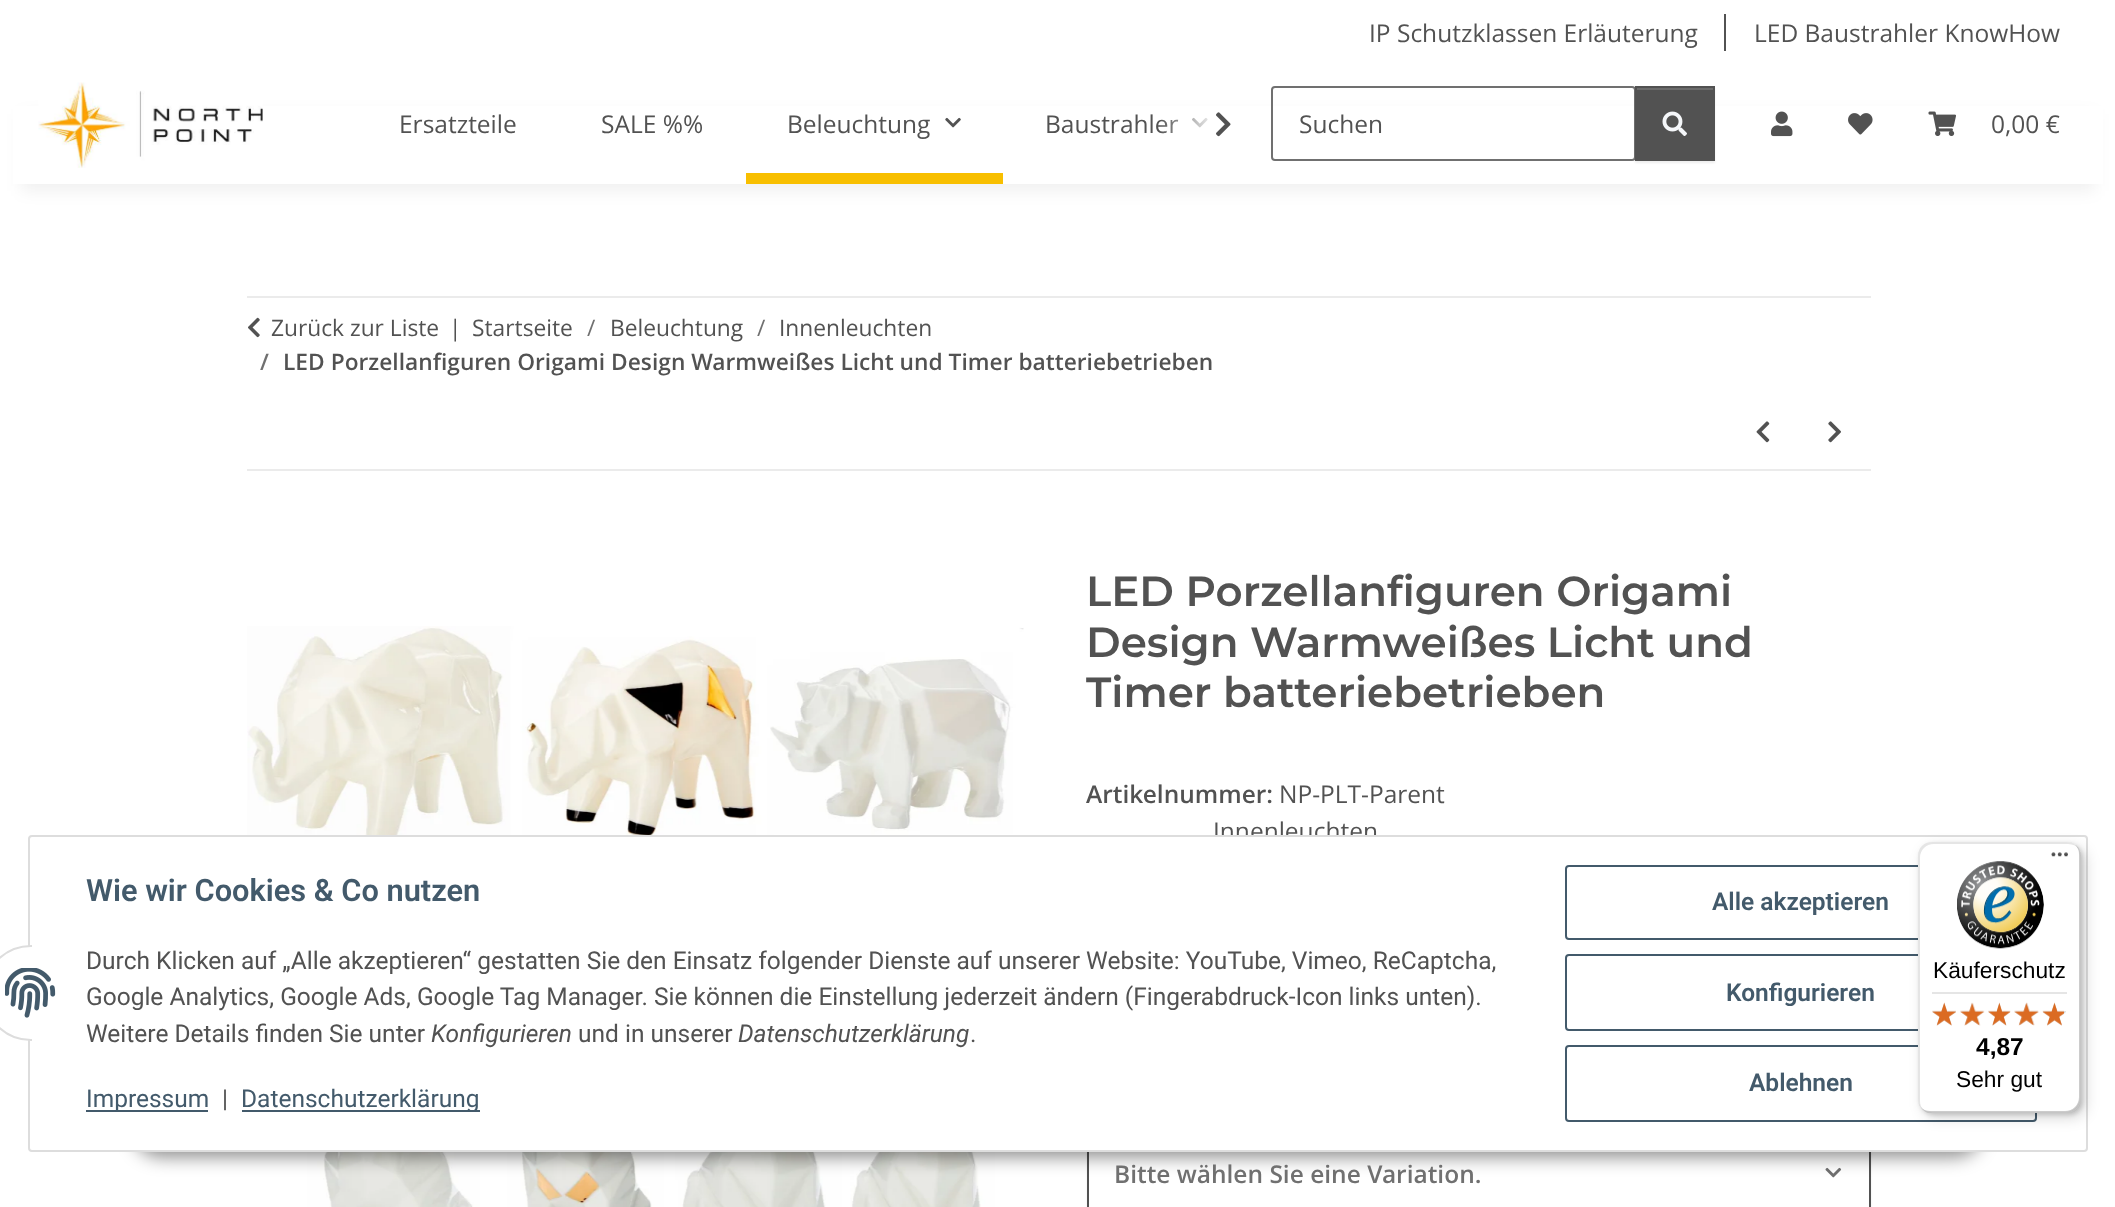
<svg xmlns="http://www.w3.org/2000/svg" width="2115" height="1207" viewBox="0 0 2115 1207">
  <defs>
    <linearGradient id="g1" gradientUnits="userSpaceOnUse" x1="1159" y1="124" x2="1243" y2="124"><stop offset="0" stop-color="#fff" stop-opacity="0.01"/><stop offset="0.7" stop-color="#fff"/></linearGradient>
  </defs>
  <rect width="100%" height="100%" fill="#fff"/>
  <path d="M1724 14h2v37H1724z" fill="#525252"/>
  <path d="M21 114h2074v77H21z" fill="#0000000f" filter="blur(8px)"/>
  <path d="M13 106h2090v78H13z" fill="#fff"/>
  <image x="38" y="82" width="225" height="86" href="img/1.png"/>
  <image x="945" y="117" width="16" height="11" href="img/2.png"/>
  <path d="M746 173h257v11H746z" fill="#f8bf00"/>
  <image x="1192" y="117" width="16" height="11" href="img/3.png"/>
  <image x="1216" y="112" width="15" height="25" href="img/4.png"/>
  <rect x="1272" y="87" width="363" height="73" rx="3" fill="none" stroke="#707070" stroke-width="2"/>
  <path d="M1635 88h80v75H1635z" fill="#00000012" filter="blur(1px)"/>
  <path d="M1637 90h76v69H1637z" fill="#525252"/>
  <path d="M1636 88h77v2H1636z" fill="#6c6c6c"/>
  <path d="M1636 87h78v73H1636z" fill="none" stroke="#525252" stroke-width="2"/>
  <image x="1662" y="111" width="25" height="25" href="img/5.png"/>
  <image x="1771" y="111" width="22" height="26" href="img/6.png"/>
  <image x="1848" y="113" width="25" height="22" href="img/7.png"/>
  <image x="1928" y="111" width="28" height="25" href="img/8.png"/>
  <path d="M247 296h1624v2H247z" fill="#ebebeb"/>
  <path d="M247 469h1624v2H247z" fill="#ebebeb"/>
  <image x="248" y="317" width="12" height="21" href="img/9.png"/>
  <image x="1756" y="421" width="14" height="22" href="img/10.png"/>
  <image x="1828" y="421" width="13" height="22" href="img/11.png"/>
  <image x="247" y="626" width="777" height="581" href="img/12.png"/>
  <rect x="1087" y="1138" width="784" height="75" rx="4" fill="#00000012" filter="blur(1px)"/>
  <path d="M1089 1152h780v55H1089z" fill="#fff"/>
  <path d="M1088 1137h782v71H1088z" fill="none" stroke="#525252" stroke-width="2"/>
  <image x="1825" y="1167" width="17" height="11" href="img/13.png"/>
  <rect x="133" y="1101" width="1850" height="56" rx="28" fill="#00000073" filter="blur(9px)"/>
  <g font-family="Open Sans" font-size="24.5" fill="#525252">
    <text x="1369" y="42">IP Schutzklassen Erläuterung</text>
    <text x="1754" y="42">LED Baustrahler KnowHow</text>
    <text x="399" y="133">Ersatzteile</text>
    <text x="601" y="133">SALE %%</text>
    <text x="787" y="133">Beleuchtung</text>
    <text x="1045" y="133">Baustrahler</text>
  </g>
  <path d="M1160 117h48v16H1160z" fill="url(#g1)"/>
  <g font-family="Open Sans" font-size="24.5" fill="#525252">
    <text x="1299" y="133">Suchen</text>
    <text x="1991" y="133">0,00 €</text>
  </g>
  <g font-family="Open Sans" font-size="22.75" fill="#525252">
    <text x="271" y="336">Zurück zur Liste</text>
    <text x="449" y="336">|</text>
    <text x="472" y="336">Startseite</text>
  </g>
  <text x="587" y="336" font-family="Open Sans" font-size="22.75" fill="#707070">/</text>
  <text x="610" y="336" font-family="Open Sans" font-size="22.75" fill="#525252">Beleuchtung</text>
  <text x="757" y="336" font-family="Open Sans" font-size="22.75" fill="#707070">/</text>
  <text x="779" y="336" font-family="Open Sans" font-size="22.75" fill="#525252">Innenleuchten</text>
  <text x="260" y="370" font-family="Open Sans" font-size="22.75" font-weight="600" fill="#707070">/</text>
  <text x="283" y="370" font-family="Open Sans" font-size="22.75" font-weight="600" fill="#525252">LED Porzellanfiguren Origami Design Warmweißes Licht und Timer batteriebetrieben</text>
  <g font-family="Montserrat" font-size="42" font-weight="600" fill="#525252">
    <text x="1086" y="606">LED Porzellanfiguren Origami</text>
    <text x="1086" y="657">Design Warmweißes Licht und</text>
    <text x="1086" y="707">Timer batteriebetrieben</text>
  </g>
  <text x="1086" y="803" font-family="Open Sans" font-size="24.5" font-weight="600" fill="#525252">Artikelnummer:</text>
  <g font-family="Open Sans" font-size="24.5" fill="#525252">
    <text x="1279" y="803">NP-PLT-Parent</text>
    <text x="1213" y="840">Innenleuchten</text>
  </g>
  <text x="1114" y="1183" font-family="Open Sans" font-size="24.5" font-weight="600" fill="#707070">Bitte wählen Sie eine Variation.</text>
  <rect x="29" y="836" width="2058" height="315" rx="3" fill="#fff" stroke="#ddd" stroke-width="2"/>
  <circle cx="31" cy="993" r="47" fill="#fff" stroke="#ddd" stroke-width="2"/>
  <path d="M32 945h47v96H32z" fill="#fff"/>
  <image x="5" y="968" width="51" height="50" href="img/14.png"/>
  <text x="86" y="901" font-family="Roboto" font-size="30.75" font-weight="600" fill="#435a6b">Wie wir Cookies &amp; Co nutzen</text>
  <g font-family="Roboto" font-size="24.5" fill="#525252">
    <text x="86" y="969">Durch Klicken auf „Alle akzeptieren“ gestatten Sie den Einsatz folgender Dienste auf unserer Website: YouTube, Vimeo, ReCaptcha,</text>
    <text x="86" y="1005">Google Analytics, Google Ads, Google Tag Manager. Sie können die Einstellung jederzeit ändern (Fingerabdruck-Icon links unten).</text>
    <text x="86" y="1042">Weitere Details finden Sie unter</text>
  </g>
  <text x="431" y="1042" font-family="Roboto" font-size="24.5" font-style="italic" fill="#525252">Konfigurieren</text>
  <text x="578" y="1042" font-family="Roboto" font-size="24.5" fill="#525252">und in unserer</text>
  <text x="738" y="1042" font-family="Roboto" font-size="24.5" font-style="italic" fill="#525252">Datenschutzerklärung</text>
  <text x="970" y="1042" font-family="Roboto" font-size="24.5" fill="#525252">.</text>
  <path d="M86 1110h122v2H86z" fill="#435a6b"/>
  <text x="86" y="1107" font-family="Roboto" font-size="24.5" fill="#435a6b">Impressum</text>
  <text x="222" y="1107" font-family="Roboto" font-size="24.5" fill="#525252">|</text>
  <path d="M242 1110h238v2H242z" fill="#435a6b"/>
  <text x="241" y="1107" font-family="Roboto" font-size="24.5" fill="#435a6b">Datenschutzerklärung</text>
  <rect x="1566" y="866" width="470" height="73" rx="3" fill="none" stroke="#435a6b" stroke-width="2"/>
  <text x="1712" y="910" font-family="Roboto" font-size="24.5" font-weight="600" fill="#435a6b">Alle akzeptieren</text>
  <rect x="1566" y="955" width="470" height="75" rx="3" fill="none" stroke="#435a6b" stroke-width="2"/>
  <text x="1726" y="1001" font-family="Roboto" font-size="24.5" font-weight="600" fill="#435a6b">Konfigurieren</text>
  <rect x="1566" y="1046" width="470" height="75" rx="3" fill="none" stroke="#435a6b" stroke-width="2"/>
  <text x="1749" y="1091" font-family="Roboto" font-size="24.5" font-weight="600" fill="#435a6b">Ablehnen</text>
  <rect x="1923" y="847" width="163" height="271" rx="14" fill="#00000026" filter="blur(7px)"/>
  <rect x="1920" y="844" width="163" height="271" rx="14" fill="#00000026" filter="blur(2px)"/>
  <rect x="1918" y="842" width="163" height="271" rx="14" fill="#fff"/>
  <path d="M1934 844H2068C2073 844 2077 846 2080 850C2077 845 2073 842 2067 842H1932C1924 842 1918 848 1918 856V1099C1918 1104 1920 1108 1924 1110C1921 1108 1920 1104 1920 1101V858C1920 850 1926 844 1934 844Z" fill="#0000001a"/>
  <path d="M1921 1107C1923 1111 1927 1113 1932 1113H2067C2075 1113 2081 1107 2081 1099V856C2081 852 2079 848 2076 846C2078 848 2079 851 2079 854V1097C2079 1105 2073 1111 2065 1111H1930C1927 1111 1923 1110 1921 1107Z" fill="#00000033"/>
  <path d="M1923 1109C1925 1112 1928 1113 1932 1113H2067C2075 1113 2081 1107 2081 1099V856C2081 851 2079 847 2075 845C2078 847 2080 851 2080 855V1098C2080 1106 2073 1112 2066 1112H1931C1928 1112 1925 1111 1923 1109Z" fill="#32323233"/>
  <path d="M1923 1109C1925 1112 1928 1113 1932 1113H2067C2075 1113 2081 1107 2081 1099V856C2081 852 2080 849 2077 847C2079 849 2080 852 2080 855V1098C2080 1106 2074 1112 2066 1112H1931C1928 1112 1925 1111 1923 1109Z" fill="#ffffff4d"/>
  <image x="2051" y="852" width="17" height="5" href="img/15.png"/>
  <image x="1957" y="861" width="87" height="88" href="img/16.png"/>
  <text x="1933" y="978" font-family="Liberation Sans" font-size="22.75" fill="#000">Käuferschutz</text>
  <path d="M1932 992h135v2H1932z" fill="#e5e5e5"/>
  <image x="1932" y="1003" width="24" height="23" href="img/22.png"/>
  <image x="1932" y="1002" width="24" height="24" href="img/17.png"/>
  <image x="1960" y="1003" width="24" height="23" href="img/23.png"/>
  <image x="1960" y="1002" width="25" height="24" href="img/18.png"/>
  <image x="1988" y="1003" width="23" height="23" href="img/24.png"/>
  <image x="1988" y="1002" width="23" height="24" href="img/19.png"/>
  <image x="2014" y="1003" width="25" height="22" href="img/25.png"/>
  <image x="2014" y="1002" width="25" height="24" href="img/20.png"/>
  <image x="2043" y="1003" width="23" height="23" href="img/26.png"/>
  <image x="2042" y="1002" width="22" height="24" href="img/21.png"/>
  <text x="1976" y="1055" font-family="Liberation Sans" font-size="24.5" font-weight="bold" fill="#000">4,87</text>
  <text x="1956" y="1087" font-family="Liberation Sans" font-size="22.75" fill="#000">Sehr gut</text>
</svg>
